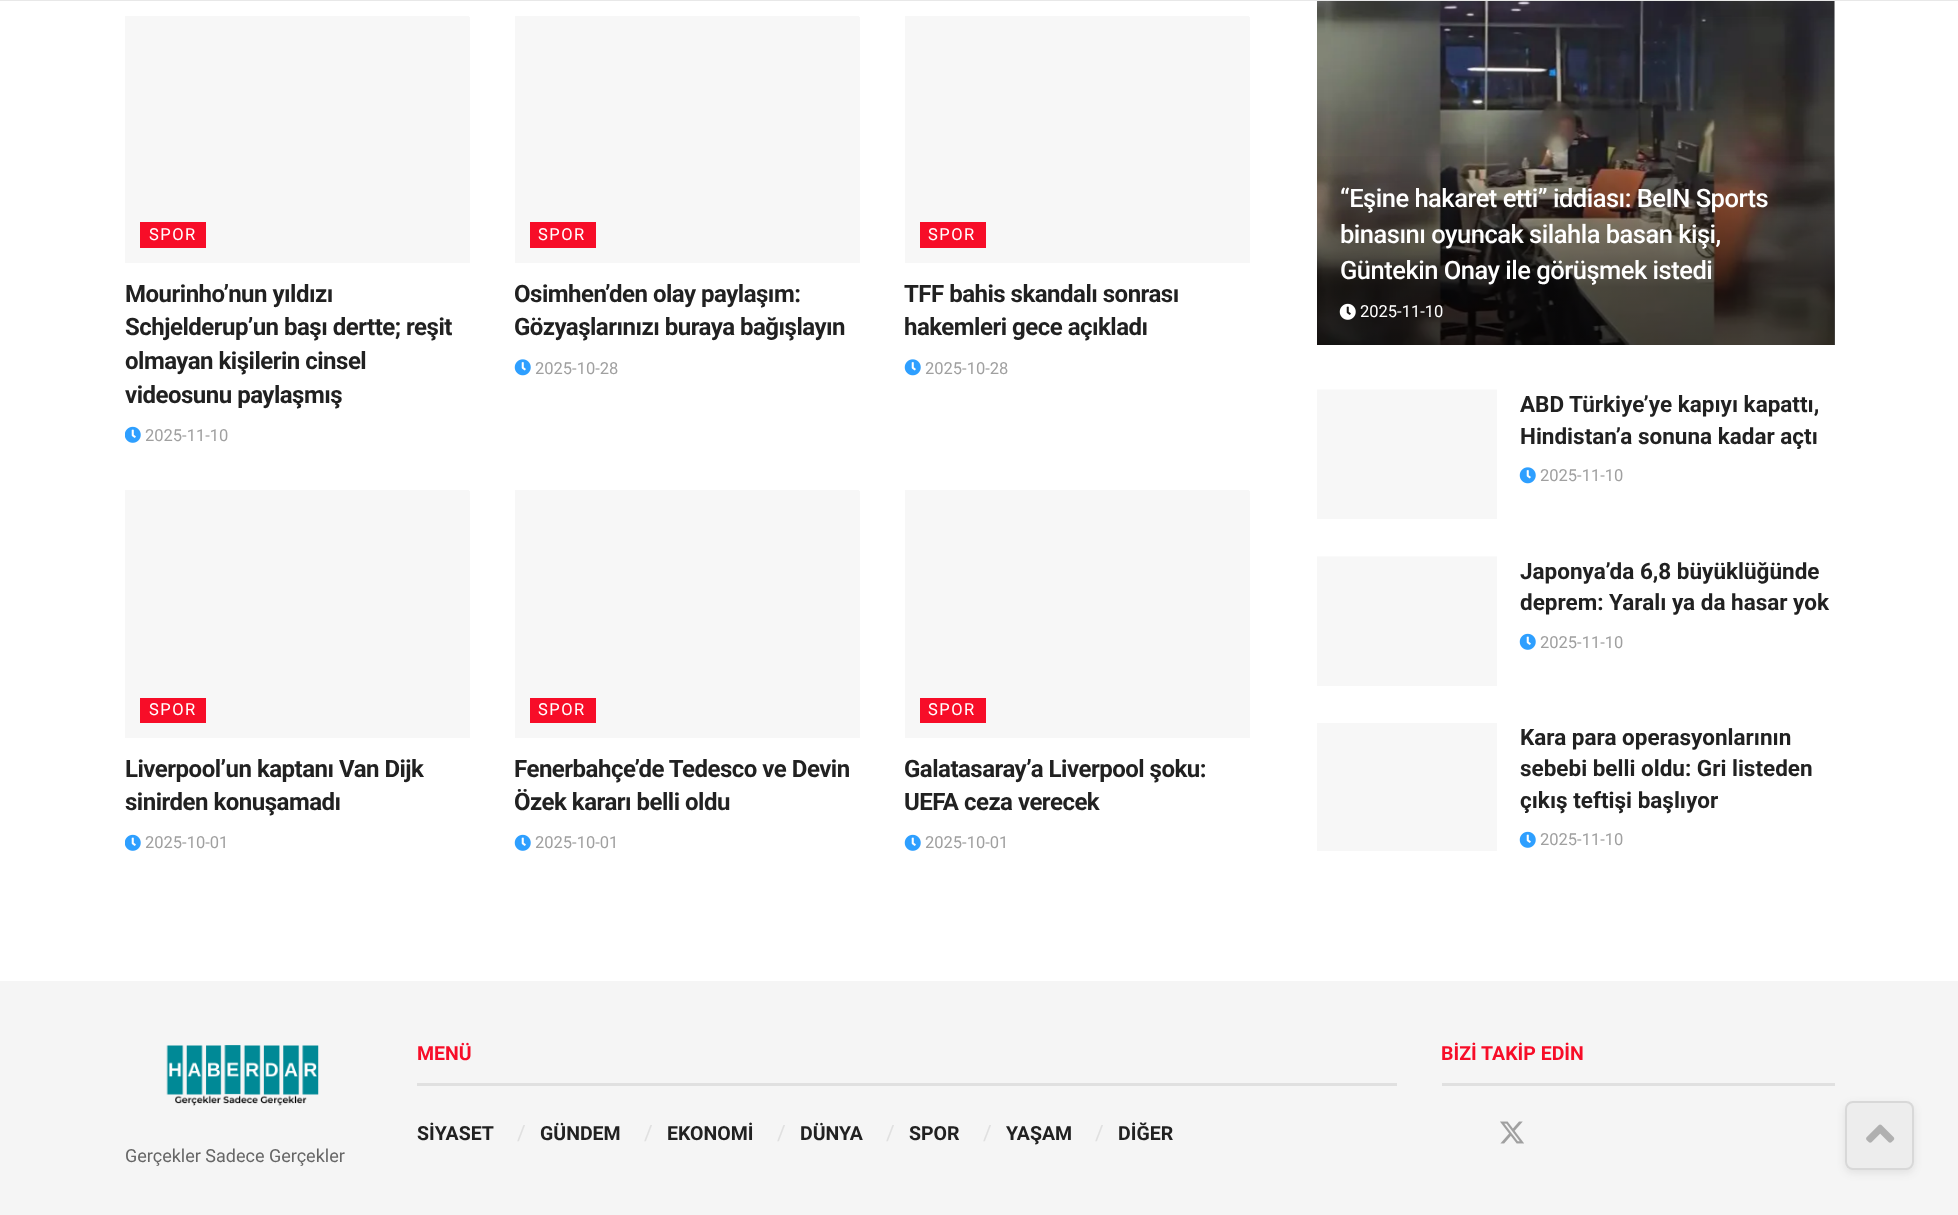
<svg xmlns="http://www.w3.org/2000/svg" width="1958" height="1215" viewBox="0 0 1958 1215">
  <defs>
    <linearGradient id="g1" gradientUnits="userSpaceOnUse" x1="1576" y1="151" x2="1576" y2="345"><stop offset="0" stop-color="#000" stop-opacity="0"/><stop offset="0.7" stop-color="#000" stop-opacity="0.65"/></linearGradient>
    <clipPath id="clip1"><path d="M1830 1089H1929V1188H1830ZM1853 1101H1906C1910.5 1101 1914 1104.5 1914 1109V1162C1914 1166.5 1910.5 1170 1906 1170H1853C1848.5 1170 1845 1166.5 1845 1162V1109C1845 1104.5 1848.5 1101 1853 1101Z" clip-rule="evenodd"/></clipPath>
  </defs>
  <rect width="100%" height="100%" fill="#fff"/>
  <path d="M0 0h1958v1H0z" fill="#e8e8e8"/>
  <path d="M125 17h345v246H125z" fill="#f7f7f7"/>
  <path d="M125 16h344v1H125z" fill="#f7f7f7"/>
  <path d="M140 222h66v26H140z" fill="#f70d28"/>
  <image x="125" y="426" width="16" height="17" href="img/1.png"/>
  <path d="M515 17h345v246H515z" fill="#f7f7f7"/>
  <path d="M515 16h344v1H515z" fill="#f7f7f7"/>
  <path d="M530 222h66v26H530z" fill="#f70d28"/>
  <image x="514" y="359" width="17" height="17" href="img/2.png"/>
  <path d="M905 17h345v246H905z" fill="#f7f7f7"/>
  <path d="M905 16h344v1H905z" fill="#f7f7f7"/>
  <path d="M920 222h66v26H920z" fill="#f70d28"/>
  <image x="904" y="359" width="17" height="17" href="img/2.png"/>
  <path d="M125 491h345v247H125z" fill="#f7f7f7"/>
  <path d="M125 490h344v1H125z" fill="#f7f7f7"/>
  <path d="M140 698h66v25H140z" fill="#f70d28"/>
  <image x="125" y="834" width="16" height="17" href="img/1.png"/>
  <path d="M515 491h345v247H515z" fill="#f7f7f7"/>
  <path d="M515 490h344v1H515z" fill="#f7f7f7"/>
  <path d="M530 698h66v25H530z" fill="#f70d28"/>
  <image x="514" y="834" width="17" height="17" href="img/3.png"/>
  <path d="M905 491h345v247H905z" fill="#f7f7f7"/>
  <path d="M905 490h344v1H905z" fill="#f7f7f7"/>
  <path d="M920 698h66v25H920z" fill="#f70d28"/>
  <image x="904" y="834" width="17" height="17" href="img/3.png"/>
  <path d="M1834 1h1v344H1834z" fill="#f7f7f7"/>
  <image x="1317" y="1" width="518" height="344" href="img/4.png"/>
  <path d="M1317 156h518v189H1317z" fill="url(#g1)"/>
  <image x="1339" y="303" width="17" height="17" href="img/5.png"/>
  <path d="M1317 390h180v129H1317z" fill="#f7f7f7"/>
  <path d="M1317 389h180v1H1317z" fill="#fbfbfb"/>
  <image x="1519" y="467" width="17" height="17" href="img/2.png"/>
  <path d="M1317 557h180v129H1317z" fill="#f7f7f7"/>
  <path d="M1317 556h180v1H1317z" fill="#fafafa"/>
  <image x="1519" y="633" width="17" height="17" href="img/3.png"/>
  <path d="M1317 723h180v128H1317z" fill="#f7f7f7"/>
  <image x="1519" y="831" width="17" height="17" href="img/3.png"/>
  <path d="M0 981h1958v234H0z" fill="#f5f5f5"/>
  <path d="M417 1083h980v3H417z" fill="#e0e0e0"/>
  <path d="M1442 1083h393v3H1442z" fill="#e0e0e0"/>
  <image x="1500" y="1121" width="24" height="23" href="img/6.png"/>
  <image x="166" y="1045" width="153" height="61" href="img/7.png"/>
  <g clip-path="url(#clip1)">
    <rect x="1845" y="1104" width="69" height="69" rx="8" fill="#3131311a" filter="blur(4.5px)"/>
  </g>
  <rect x="1845" y="1101" width="69" height="69" rx="8" fill="#c2c2c226"/>
  <rect x="1846" y="1102" width="67" height="67" rx="7" fill="none" stroke="#3131311c" stroke-width="2"/>
  <image x="1866" y="1124" width="29" height="19" href="img/8.png"/>
  <text x="149" y="240" font-family="Roboto" font-size="16.5" letter-spacing="1.5" fill="#fff">SPOR</text>
  <g font-family="Roboto" font-size="24" font-weight="bold" letter-spacing="-0.5" fill="#212121">
    <text x="125" y="302">Mourinho’nun yıldızı</text>
    <text x="125" y="335">Schjelderup’un başı dertte; reşit</text>
    <text x="125" y="369">olmayan kişilerin cinsel</text>
    <text x="125" y="403">videosunu paylaşmış</text>
  </g>
  <text x="145" y="441" font-family="Roboto" font-size="16.5" fill="#a0a0a0">2025-11-10</text>
  <text x="538" y="240" font-family="Roboto" font-size="16.5" letter-spacing="1.5" fill="#fff">SPOR</text>
  <g font-family="Roboto" font-size="24" font-weight="bold" letter-spacing="-0.5" fill="#212121">
    <text x="514" y="302">Osimhen’den olay paylaşım:</text>
    <text x="514" y="335">Gözyaşlarınızı buraya bağışlayın</text>
  </g>
  <text x="535" y="374" font-family="Roboto" font-size="16.5" fill="#a0a0a0">2025-10-28</text>
  <text x="928" y="240" font-family="Roboto" font-size="16.5" letter-spacing="1.5" fill="#fff">SPOR</text>
  <g font-family="Roboto" font-size="24" font-weight="bold" letter-spacing="-0.5" fill="#212121">
    <text x="904" y="302">TFF bahis skandalı sonrası</text>
    <text x="904" y="335">hakemleri gece açıkladı</text>
  </g>
  <text x="925" y="374" font-family="Roboto" font-size="16.5" fill="#a0a0a0">2025-10-28</text>
  <text x="149" y="715" font-family="Roboto" font-size="16.5" letter-spacing="1.5" fill="#fff">SPOR</text>
  <g font-family="Roboto" font-size="24" font-weight="bold" letter-spacing="-0.5" fill="#212121">
    <text x="125" y="777">Liverpool’un kaptanı Van Dijk</text>
    <text x="125" y="810">sinirden konuşamadı</text>
  </g>
  <text x="145" y="848" font-family="Roboto" font-size="16.5" fill="#a0a0a0">2025-10-01</text>
  <text x="538" y="715" font-family="Roboto" font-size="16.5" letter-spacing="1.5" fill="#fff">SPOR</text>
  <g font-family="Roboto" font-size="24" font-weight="bold" letter-spacing="-0.5" fill="#212121">
    <text x="514" y="777">Fenerbahçe’de Tedesco ve Devin</text>
    <text x="514" y="810">Özek kararı belli oldu</text>
  </g>
  <text x="535" y="848" font-family="Roboto" font-size="16.5" fill="#a0a0a0">2025-10-01</text>
  <text x="928" y="715" font-family="Roboto" font-size="16.5" letter-spacing="1.5" fill="#fff">SPOR</text>
  <g font-family="Roboto" font-size="24" font-weight="bold" letter-spacing="-0.5" fill="#212121">
    <text x="904" y="777">Galatasaray’a Liverpool şoku:</text>
    <text x="904" y="810">UEFA ceza verecek</text>
  </g>
  <text x="925" y="848" font-family="Roboto" font-size="16.5" fill="#a0a0a0">2025-10-01</text>
  <g font-family="Roboto" font-size="25.5" font-weight="500" letter-spacing="-0.5" fill="#fff">
    <text x="1340" y="207">“Eşine hakaret etti” iddiası: BeIN Sports</text>
    <text x="1340" y="243">binasını oyuncak silahla basan kişi,</text>
    <text x="1340" y="279">Güntekin Onay ile görüşmek istedi</text>
  </g>
  <text x="1360" y="317" font-family="Roboto" font-size="16.5" fill="#fff">2025-11-10</text>
  <g font-family="Roboto" font-size="22.5" font-weight="bold" fill="#212121">
    <text x="1520" y="412">ABD Türkiye’ye kapıyı kapattı,</text>
    <text x="1520" y="444">Hindistan’a sonuna kadar açtı</text>
  </g>
  <text x="1540" y="481" font-family="Roboto" font-size="16.5" fill="#a0a0a0">2025-11-10</text>
  <g font-family="Roboto" font-size="22.5" font-weight="bold" fill="#212121">
    <text x="1520" y="579">Japonya’da 6,8 büyüklüğünde</text>
    <text x="1520" y="610">deprem: Yaralı ya da hasar yok</text>
  </g>
  <text x="1540" y="648" font-family="Roboto" font-size="16.5" fill="#a0a0a0">2025-11-10</text>
  <g font-family="Roboto" font-size="22.5" font-weight="bold" fill="#212121">
    <text x="1520" y="745">Kara para operasyonlarının</text>
    <text x="1520" y="776">sebebi belli oldu: Gri listeden</text>
    <text x="1520" y="808">çıkış teftişi başlıyor</text>
  </g>
  <text x="1540" y="845" font-family="Roboto" font-size="16.5" fill="#a0a0a0">2025-11-10</text>
  <text x="417" y="1060" font-family="Roboto" font-size="19.5" font-weight="bold" fill="#f70d28">MENÜ</text>
  <text x="417" y="1140" font-family="Roboto" font-size="19.5" font-weight="bold" fill="#212121">SİYASET</text>
  <text x="517" y="1140" font-family="Roboto" font-size="21" fill="#e0e0e0">/</text>
  <text x="540" y="1140" font-family="Roboto" font-size="19.5" font-weight="bold" fill="#212121">GÜNDEM</text>
  <text x="644" y="1140" font-family="Roboto" font-size="21" fill="#e0e0e0">/</text>
  <text x="667" y="1140" font-family="Roboto" font-size="19.5" font-weight="bold" fill="#212121">EKONOMİ</text>
  <text x="777" y="1140" font-family="Roboto" font-size="21" fill="#e0e0e0">/</text>
  <text x="800" y="1140" font-family="Roboto" font-size="19.5" font-weight="bold" fill="#212121">DÜNYA</text>
  <text x="886" y="1140" font-family="Roboto" font-size="21" fill="#e0e0e0">/</text>
  <text x="909" y="1140" font-family="Roboto" font-size="19.5" font-weight="bold" fill="#212121">SPOR</text>
  <text x="983" y="1140" font-family="Roboto" font-size="21" fill="#e0e0e0">/</text>
  <text x="1006" y="1140" font-family="Roboto" font-size="19.5" font-weight="bold" fill="#212121">YAŞAM</text>
  <text x="1095" y="1140" font-family="Roboto" font-size="21" fill="#e0e0e0">/</text>
  <text x="1118" y="1140" font-family="Roboto" font-size="19.5" font-weight="bold" fill="#212121">DİĞER</text>
  <text x="1441" y="1060" font-family="Roboto" font-size="19.5" font-weight="bold" fill="#f70d28">BİZİ TAKİP EDİN</text>
  <text x="125" y="1162" font-family="Roboto" font-size="18" fill="#666">Gerçekler Sadece Gerçekler</text>
</svg>
